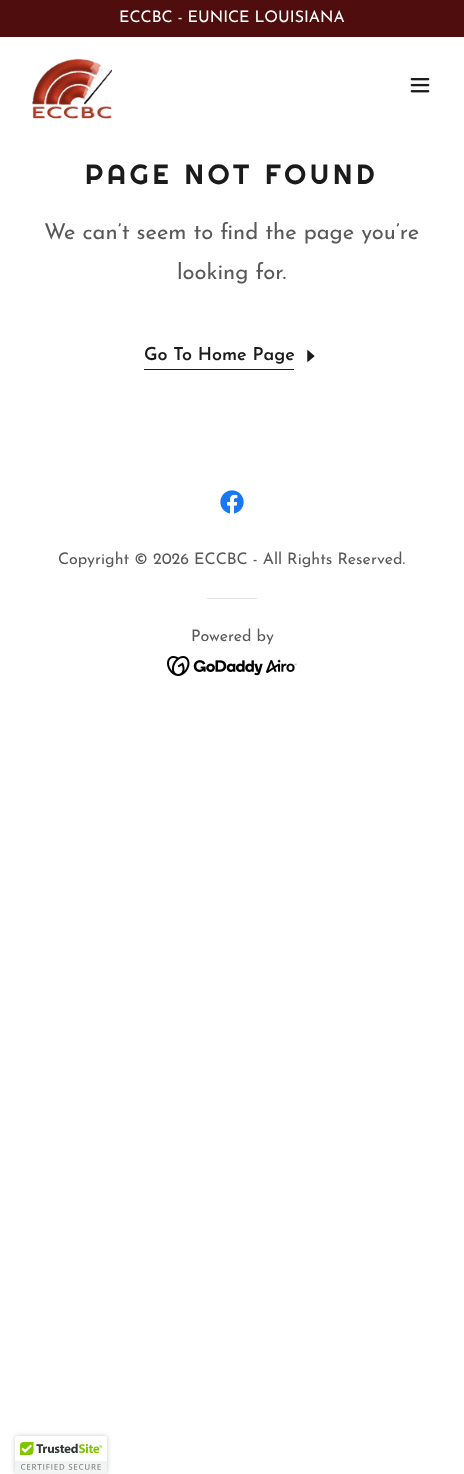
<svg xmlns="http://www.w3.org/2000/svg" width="464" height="1474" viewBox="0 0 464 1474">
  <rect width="100%" height="100%" fill="#fff"/>
  <path d="M0 0h464v37H0z" fill="#4f0d0d"/>
  <image x="32" y="58" width="80" height="61" href="img/1.png"/>
  <image x="410" y="78" width="20" height="15" href="img/2.png"/>
  <path d="M144 369h150v1H144z" fill="#1b1b1b"/>
  <image x="307" y="350" width="8" height="12" href="img/3.png"/>
  <image x="220" y="490" width="24" height="24" href="img/4.png"/>
  <path d="M207 598h50v1H207z" fill="#e2e2e2"/>
  <image x="167" y="656" width="130" height="20" href="img/5.png"/>
  <rect x="15" y="1436" width="92" height="38" rx="2" fill="#00000033" filter="blur(2.5px)"/>
  <path d="M17 1436H105C106 1436 107 1437 107 1438V1474H15V1438C15 1437 16 1436 17 1436Z" fill="#fff"/>
  <image x="15" y="1442" width="92" height="32" href="img/6.png"/>
  <text x="119" y="22" font-family="Josefin Sans" font-size="16" fill="#fff">ECCBC - EUNICE LOUISIANA</text>
  <text x="85" y="184" font-family="Righteous" font-size="28" letter-spacing="4" fill="#1b1b1b">PAGE NOT FOUND</text>
  <g font-family="Josefin Sans" font-size="22" fill="#595959">
    <text x="44" y="239">We can’t seem to find the page you’re</text>
    <text x="177" y="279">looking for.</text>
  </g>
  <text x="144" y="360" font-family="Josefin Sans" font-size="18" font-weight="600" fill="#1b1b1b">Go To Home Page</text>
  <g font-family="Josefin Sans" font-size="16" fill="#595959">
    <text x="58" y="564">Copyright © 2026 ECCBC - All Rights Reserved.</text>
    <text x="191" y="641">Powered by</text>
  </g>
</svg>
